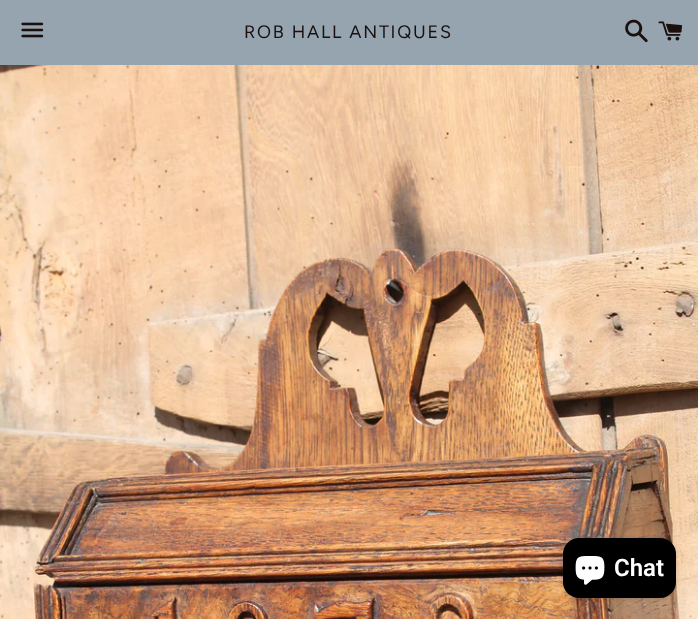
<svg xmlns="http://www.w3.org/2000/svg" width="698" height="619" viewBox="0 0 698 619">
  <rect width="100%" height="100%" fill="#fff"/>
  <path d="M0 0h698v65H0z" fill="#95a4ae"/>
  <image x="21" y="22" width="23" height="16" href="img/1.png"/>
  <image x="625" y="19" width="23" height="24" href="img/2.png"/>
  <image x="658" y="21" width="25" height="20" href="img/3.png"/>
  <image x="0" y="65" width="698" height="554" href="img/4.png"/>
  <rect x="563" y="538" width="113" height="60" rx="16" fill="#00000026" filter="blur(2.5px)"/>
  <rect x="563" y="538" width="113" height="60" rx="16" fill="#000"/>
  <image x="575" y="556" width="30" height="29" href="img/5.png"/>
  <text x="244" y="38" font-family="Figtree" font-size="18" letter-spacing="1.75" fill="#1b100e">ROB HALL ANTIQUES</text>
  <text x="614" y="576" font-family="Roboto" font-size="24" font-weight="600" fill="#fff">Chat</text>
</svg>
